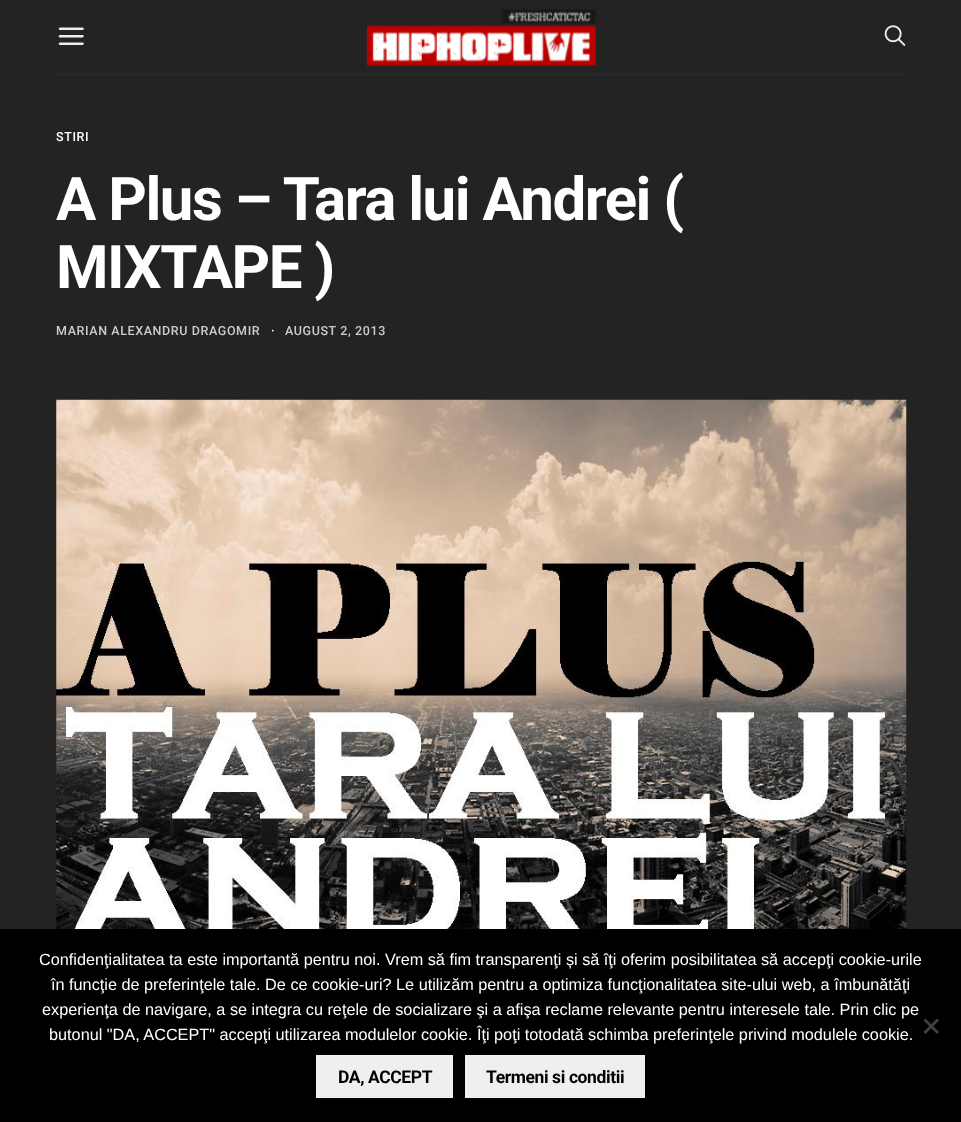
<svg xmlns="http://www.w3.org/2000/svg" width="961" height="1122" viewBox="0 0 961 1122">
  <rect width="100%" height="100%" fill="#232323"/>
  <path d="M56 74h850v1H56z" fill="#2b2b2b"/>
  <image x="58" y="27" width="26" height="18" href="img/1.png"/>
  <image x="366" y="9" width="230" height="57" href="img/2.png"/>
  <image x="884" y="25" width="22" height="21" href="img/3.png"/>
  <image x="56" y="399" width="851" height="530" href="img/4.png"/>
  <path d="M0 929h961v193H0z" fill="#000"/>
  <path d="M937 1018.5L939 1020.5L925.5 1034L923.5 1032Z" fill="#404040"/>
  <path d="M923.5 1020.5L925.5 1018.5L939 1032L937 1034Z" fill="#404040"/>
  <path d="M316 1055h137v43H316z" fill="#efefef"/>
  <path d="M465 1055h180v43H465z" fill="#efefef"/>
  <text x="56" y="141" font-family="Roboto" font-size="12.5" font-weight="500" letter-spacing="0.6" fill="#fff">STIRI</text>
  <g font-family="Roboto" font-size="60" font-weight="bold" letter-spacing="-1.5" fill="#fff">
    <text x="56" y="220">A Plus – Tara lui Andrei (</text>
    <text x="56" y="288">MIXTAPE )</text>
  </g>
  <text x="56" y="335" font-family="Roboto" font-size="12.5" font-weight="500" letter-spacing="0.6" fill="#ccc">MARIAN ALEXANDRU DRAGOMIR</text>
  <text x="271" y="335" font-family="Roboto" font-size="12.5" font-weight="500" letter-spacing="0.6" fill="#fff">·</text>
  <text x="285" y="335" font-family="Roboto" font-size="12.5" font-weight="500" letter-spacing="0.6" fill="#ccc">AUGUST 2, 2013</text>
  <g font-family="Liberation Sans" font-size="16.25" fill="#fff">
    <text x="39" y="965">Confidenţialitatea ta este importantă pentru noi. Vrem să fim transparenţi și să îţi oferim posibilitatea să accepţi cookie-urile</text>
    <text x="51" y="990">în funcţie de preferinţele tale. De ce cookie-uri? Le utilizăm pentru a optimiza funcţionalitatea site-ului web, a îmbunătăţi</text>
    <text x="42" y="1015">experienţa de navigare, a se integra cu reţele de socializare şi a afişa reclame relevante pentru interesele tale. Prin clic pe</text>
    <text x="49" y="1040">butonul "DA, ACCEPT" accepţi utilizarea modulelor cookie. Îţi poţi totodată schimba preferinţele privind modulele cookie.</text>
  </g>
  <g font-family="Roboto" font-size="17.5" font-weight="bold" letter-spacing="-0.4" fill="#000">
    <text x="338" y="1083">DA, ACCEPT</text>
    <text x="486" y="1083">Termeni si conditii</text>
  </g>
</svg>
